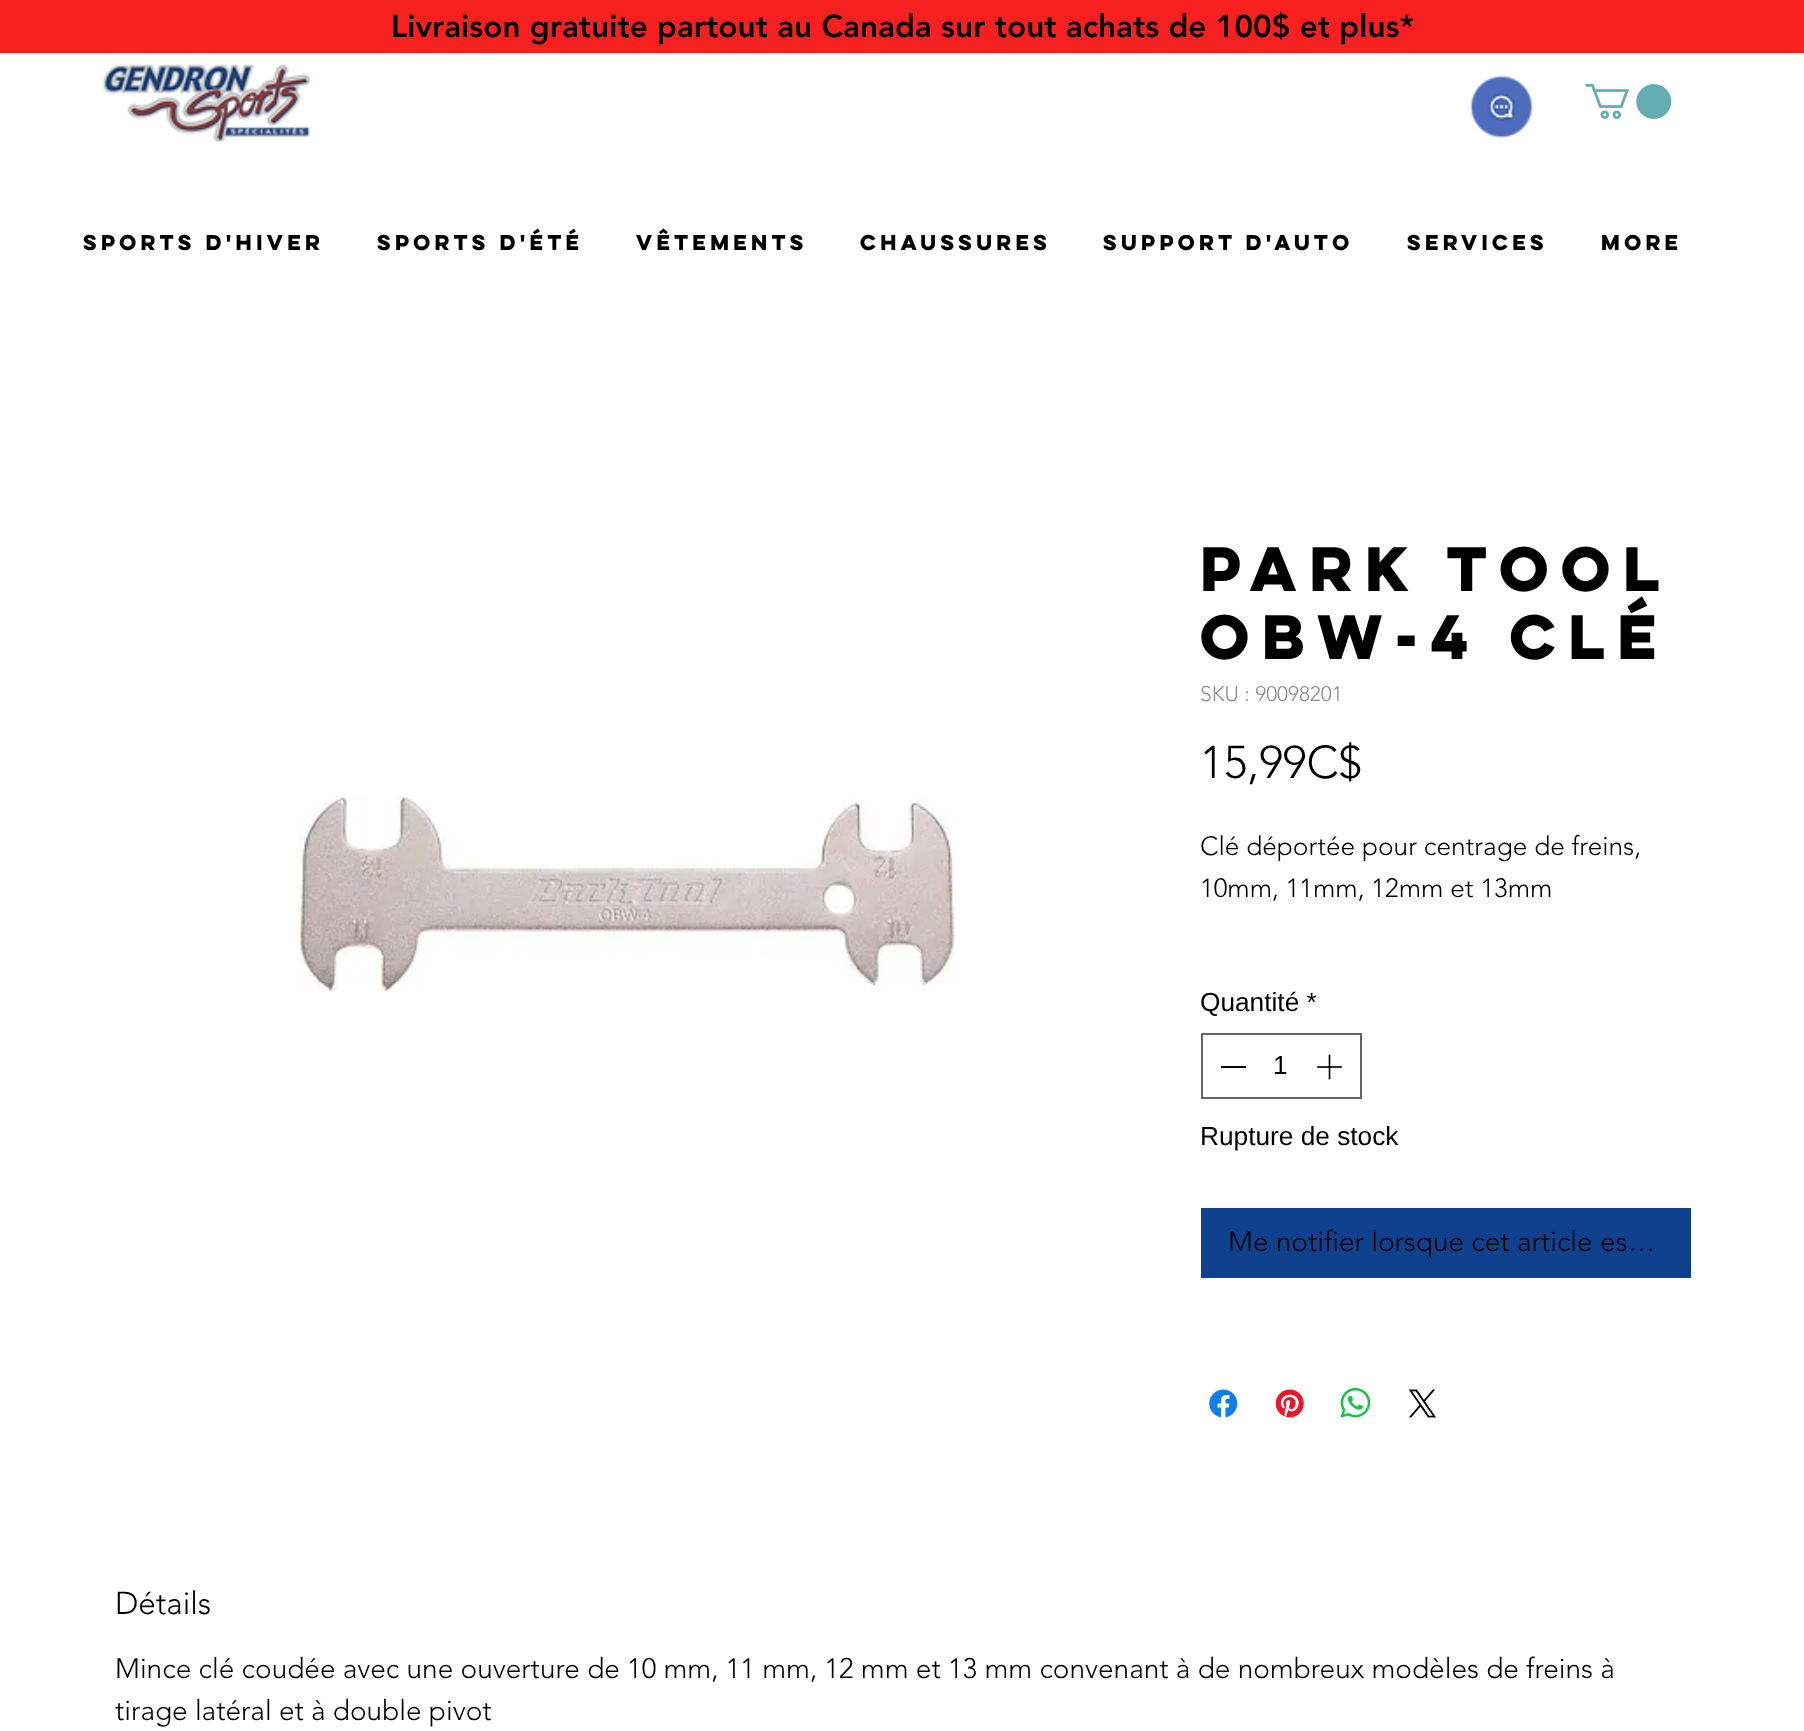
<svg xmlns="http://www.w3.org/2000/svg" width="1804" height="1731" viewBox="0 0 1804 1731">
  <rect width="100%" height="100%" fill="#fff"/>
  <path d="M0 0h1804v53H0z" fill="#f72020"/>
  <image x="102" y="63" width="208" height="79" href="img/1.png"/>
  <image x="1469" y="75" width="65" height="64" href="img/2.png"/>
  <image x="1585" y="84" width="87" height="35" href="img/3.png"/>
  <image x="297" y="795" width="659" height="197" href="img/4.png"/>
  <path d="M1202 1034h159v64H1202z" fill="none" stroke="#666" stroke-width="2"/>
  <path d="M1221 1066h25v2H1221z" fill="#000"/>
  <image x="1317" y="1054" width="25" height="26" href="img/5.png"/>
  <path d="M1201 1208h490v70H1201z" fill="#10418f"/>
  <image x="1209" y="1389" width="29" height="29" href="img/6.png"/>
  <image x="1275" y="1389" width="29" height="29" href="img/7.png"/>
  <image x="1340" y="1387" width="31" height="31" href="img/8.png"/>
  <image x="1408" y="1389" width="28" height="29" href="img/9.png"/>
  <text x="391" y="37" font-family="'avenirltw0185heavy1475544'" font-size="31.5" font-weight="900" fill="#000">Livraison gratuite partout au Canada sur tout achats de 100$ et plus*</text>
  <g font-family="'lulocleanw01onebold'" font-size="19.25" font-weight="bold" fill="#000">
    <text x="83" y="250">Sports d'hiver</text>
    <text x="377" y="250">Sports d'été</text>
    <text x="636" y="250">Vêtements</text>
    <text x="860" y="250">Chaussures</text>
    <text x="1103" y="250">Support d'auto</text>
    <text x="1407" y="250">Services</text>
    <text x="1601" y="250">More</text>
  </g>
  <g font-family="'lulocleanw01onebold'" font-size="56" font-weight="bold" fill="#000">
    <text x="1200" y="591" word-spacing="-1">Park Tool</text>
    <text x="1200" y="659">OBW-4 Clé</text>
  </g>
  <text x="1200" y="701" font-family="'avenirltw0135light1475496'" font-size="21" font-weight="300" fill="#8c8c8c">SKU : 90098201</text>
  <text x="1200" y="778" font-family="'avenirltw0135light1475496'" font-size="45.5" font-weight="300" fill="#000">15,99C$</text>
  <g font-family="'avenirltw0135light1475496'" font-size="26.25" font-weight="300" fill="#000">
    <text x="1200" y="855">Clé déportée pour centrage de freins,</text>
    <text x="1200" y="897">10mm, 11mm, 12mm et 13mm</text>
  </g>
  <g font-family="Liberation Sans" font-size="26.25" fill="#000">
    <text x="1200" y="1011">Quantité *</text>
    <text x="1273" y="1074">1</text>
    <text x="1200" y="1145">Rupture de stock</text>
  </g>
  <text x="1228" y="1251" font-family="'avenirltw0135light1475496'" font-size="28" font-weight="300" fill="#000">Me notifier lorsque cet article es…</text>
  <text x="115" y="1614" font-family="'avenirltw0135light1475496'" font-size="31.5" font-weight="300" fill="#000">Détails</text>
  <g font-family="'avenirltw0135light1475496'" font-size="28" font-weight="300" fill="#000">
    <text x="115" y="1678">Mince clé coudée avec une ouverture de 10 mm, 11 mm, 12 mm et 13 mm convenant à de nombreux modèles de freins à</text>
    <text x="115" y="1720">tirage latéral et à double pivot</text>
  </g>
</svg>
